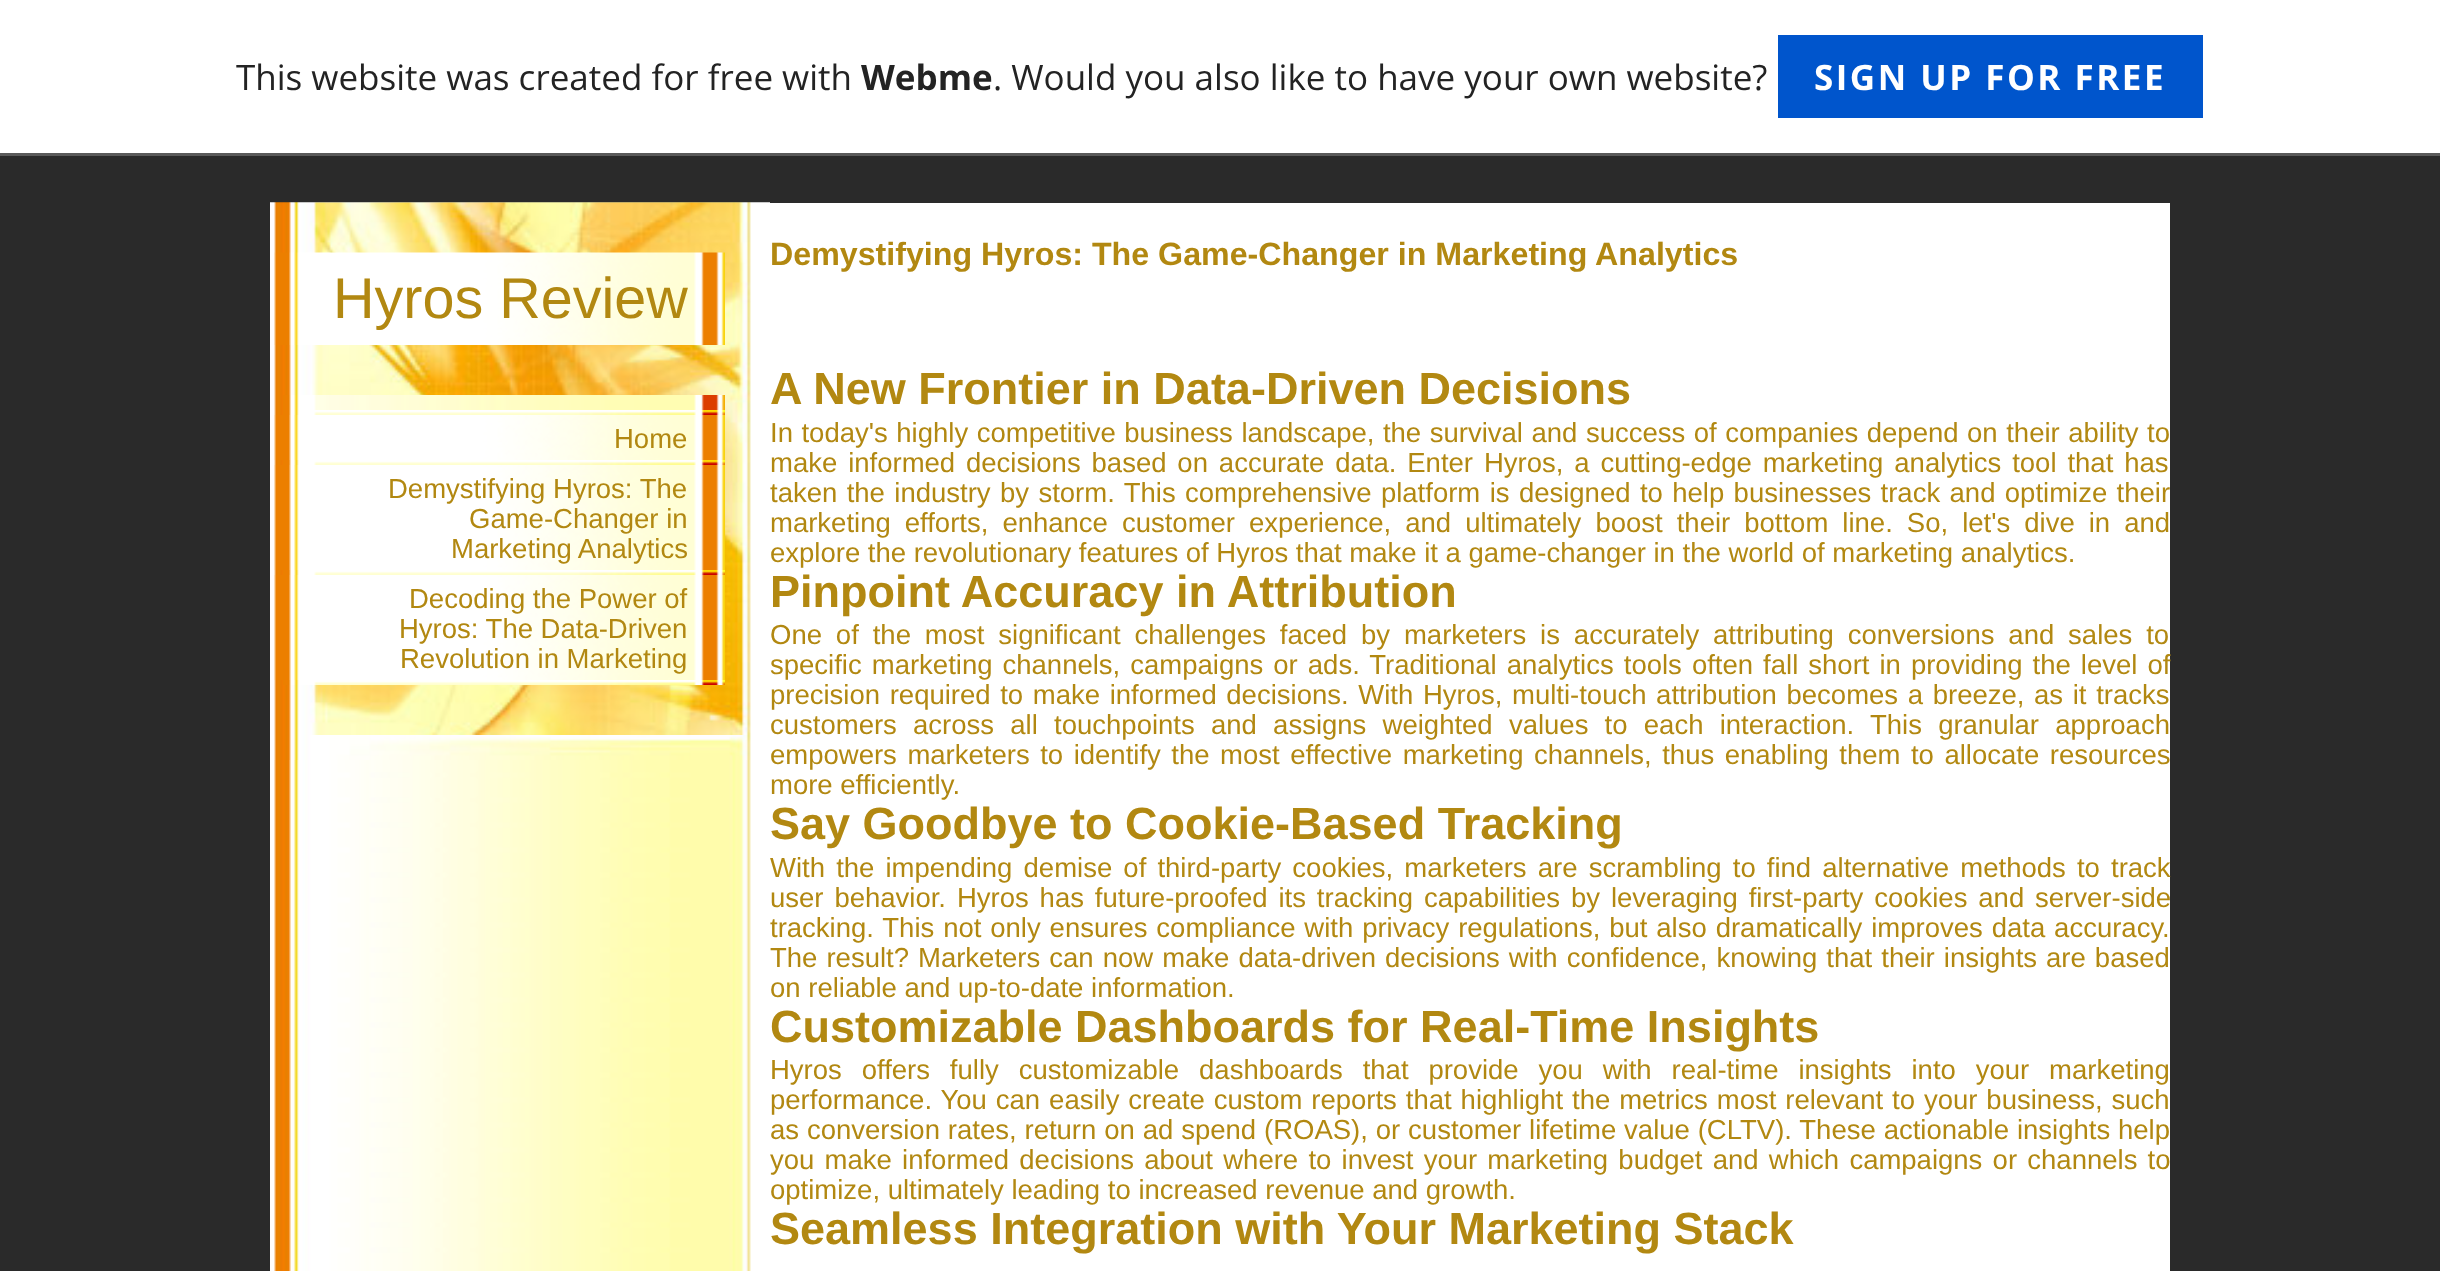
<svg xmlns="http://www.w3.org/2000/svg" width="2440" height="1271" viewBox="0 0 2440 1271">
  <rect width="100%" height="100%" fill="#2a2a2a"/>
  <path d="M0 0h2440v153H0z" fill="#fff"/>
  <path d="M0 153h2440v3H0z" fill="#5a5a5a"/>
  <path d="M1778 35h425v83H1778z" fill="#05c"/>
  <path d="M770 203h1400v1068H770z" fill="#fff"/>
  <image x="270" y="202" width="500" height="1069" href="img/1.png"/>
  <image x="270" y="202" width="500" height="533" href="img/2.png"/>
  <image x="274" y="252" width="451" height="93" href="img/3.png"/>
  <image x="283" y="395" width="442" height="15" href="img/4.png"/>
  <image x="283" y="410" width="442" height="5" href="img/5.png"/>
  <image x="274" y="415" width="451" height="45" href="img/6.png"/>
  <image x="283" y="460" width="442" height="5" href="img/5.png"/>
  <image x="274" y="465" width="451" height="105" href="img/7.png"/>
  <image x="283" y="570" width="442" height="5" href="img/5.png"/>
  <image x="274" y="575" width="451" height="105" href="img/8.png"/>
  <image x="283" y="680" width="442" height="5" href="img/5.png"/>
  <image x="274" y="735" width="477" height="25" href="img/9.png"/>
  <text x="236" y="90" font-family="Open Sans" font-size="35" fill="#232323">This website was created for free with</text>
  <text x="861" y="90" font-family="Open Sans" font-size="35" font-weight="bold" fill="#232323">Webme</text>
  <text x="993" y="90" font-family="Open Sans" font-size="35" fill="#232323">. Would you also like to have your own website?</text>
  <text x="1814" y="90" font-family="Open Sans" font-size="35" font-weight="bold" letter-spacing="2.5" fill="#fff">SIGN UP FOR FREE</text>
  <text x="333" y="318" font-family="Liberation Sans" font-size="57.5" fill="#b28811">Hyros Review</text>
  <g font-family="Liberation Sans" font-size="27.5" fill="#b28811">
    <text x="614" y="448">Home</text>
    <text x="388" y="498">Demystifying Hyros: The</text>
    <text x="469" y="528">Game-Changer in</text>
    <text x="451" y="558">Marketing Analytics</text>
    <text x="409" y="608">Decoding the Power of</text>
    <text x="399" y="638">Hyros: The Data-Driven</text>
    <text x="400" y="668">Revolution in Marketing</text>
  </g>
  <text x="770" y="265" font-family="Liberation Sans" font-size="32.2" font-weight="bold" fill="#b28811">Demystifying Hyros: The Game-Changer in Marketing Analytics</text>
  <text x="770" y="404" font-family="Liberation Sans" font-size="45" font-weight="bold" fill="#b28811">A New Frontier in Data-Driven Decisions</text>
  <g font-family="Liberation Sans" font-size="27.5" fill="#b28811">
    <text x="770" y="442" word-spacing="0.9">In today's highly competitive business landscape, the survival and success of companies depend on their ability to</text>
    <text x="770" y="472" word-spacing="3.25">make informed decisions based on accurate data. Enter Hyros, a cutting-edge marketing analytics tool that has</text>
    <text x="770" y="502" word-spacing="1.75">taken the industry by storm. This comprehensive platform is designed to help businesses track and optimize their</text>
    <text x="770" y="532" word-spacing="6.4">marketing efforts, enhance customer experience, and ultimately boost their bottom line. So, let's dive in and</text>
    <text x="770" y="562">explore the revolutionary features of Hyros that make it a game-changer in the world of marketing analytics.</text>
  </g>
  <text x="770" y="607" font-family="Liberation Sans" font-size="45" font-weight="bold" fill="#b28811">Pinpoint Accuracy in Attribution</text>
  <g font-family="Liberation Sans" font-size="27.5" fill="#b28811">
    <text x="770" y="644" word-spacing="6.25">One of the most significant challenges faced by marketers is accurately attributing conversions and sales to</text>
    <text x="770" y="674" word-spacing="2.4">specific marketing channels, campaigns or ads. Traditional analytics tools often fall short in providing the level of</text>
    <text x="770" y="704" word-spacing="2">precision required to make informed decisions. With Hyros, multi-touch attribution becomes a breeze, as it tracks</text>
    <text x="770" y="734" word-spacing="8.6">customers across all touchpoints and assigns weighted values to each interaction. This granular approach</text>
    <text x="770" y="764" word-spacing="2.9">empowers marketers to identify the most effective marketing channels, thus enabling them to allocate resources</text>
    <text x="770" y="794">more efficiently.</text>
  </g>
  <text x="770" y="839" font-family="Liberation Sans" font-size="45" font-weight="bold" fill="#b28811">Say Goodbye to Cookie-Based Tracking</text>
  <g font-family="Liberation Sans" font-size="27.5" fill="#b28811">
    <text x="770" y="877" word-spacing="3.5">With the impending demise of third-party cookies, marketers are scrambling to find alternative methods to track</text>
    <text x="770" y="907" word-spacing="3.25">user behavior. Hyros has future-proofed its tracking capabilities by leveraging first-party cookies and server-side</text>
    <text x="770" y="937" word-spacing="1.25">tracking. This not only ensures compliance with privacy regulations, but also dramatically improves data accuracy.</text>
    <text x="770" y="967" word-spacing="1.4">The result? Marketers can now make data-driven decisions with confidence, knowing that their insights are based</text>
    <text x="770" y="997">on reliable and up-to-date information.</text>
  </g>
  <text x="770" y="1042" font-family="Liberation Sans" font-size="45" font-weight="bold" fill="#b28811">Customizable Dashboards for Real-Time Insights</text>
  <g font-family="Liberation Sans" font-size="27.5" fill="#b28811">
    <text x="770" y="1079" word-spacing="12.25">Hyros offers fully customizable dashboards that provide you with real-time insights into your marketing</text>
    <text x="770" y="1109" word-spacing="1.3">performance. You can easily create custom reports that highlight the metrics most relevant to your business, such</text>
    <text x="770" y="1139" word-spacing="0.25">as conversion rates, return on ad spend (ROAS), or customer lifetime value (CLTV). These actionable insights help</text>
    <text x="770" y="1169" word-spacing="2.6">you make informed decisions about where to invest your marketing budget and which campaigns or channels to</text>
    <text x="770" y="1199">optimize, ultimately leading to increased revenue and growth.</text>
  </g>
  <text x="770" y="1244" font-family="Liberation Sans" font-size="45" font-weight="bold" fill="#b28811">Seamless Integration with Your Marketing Stack</text>
</svg>
